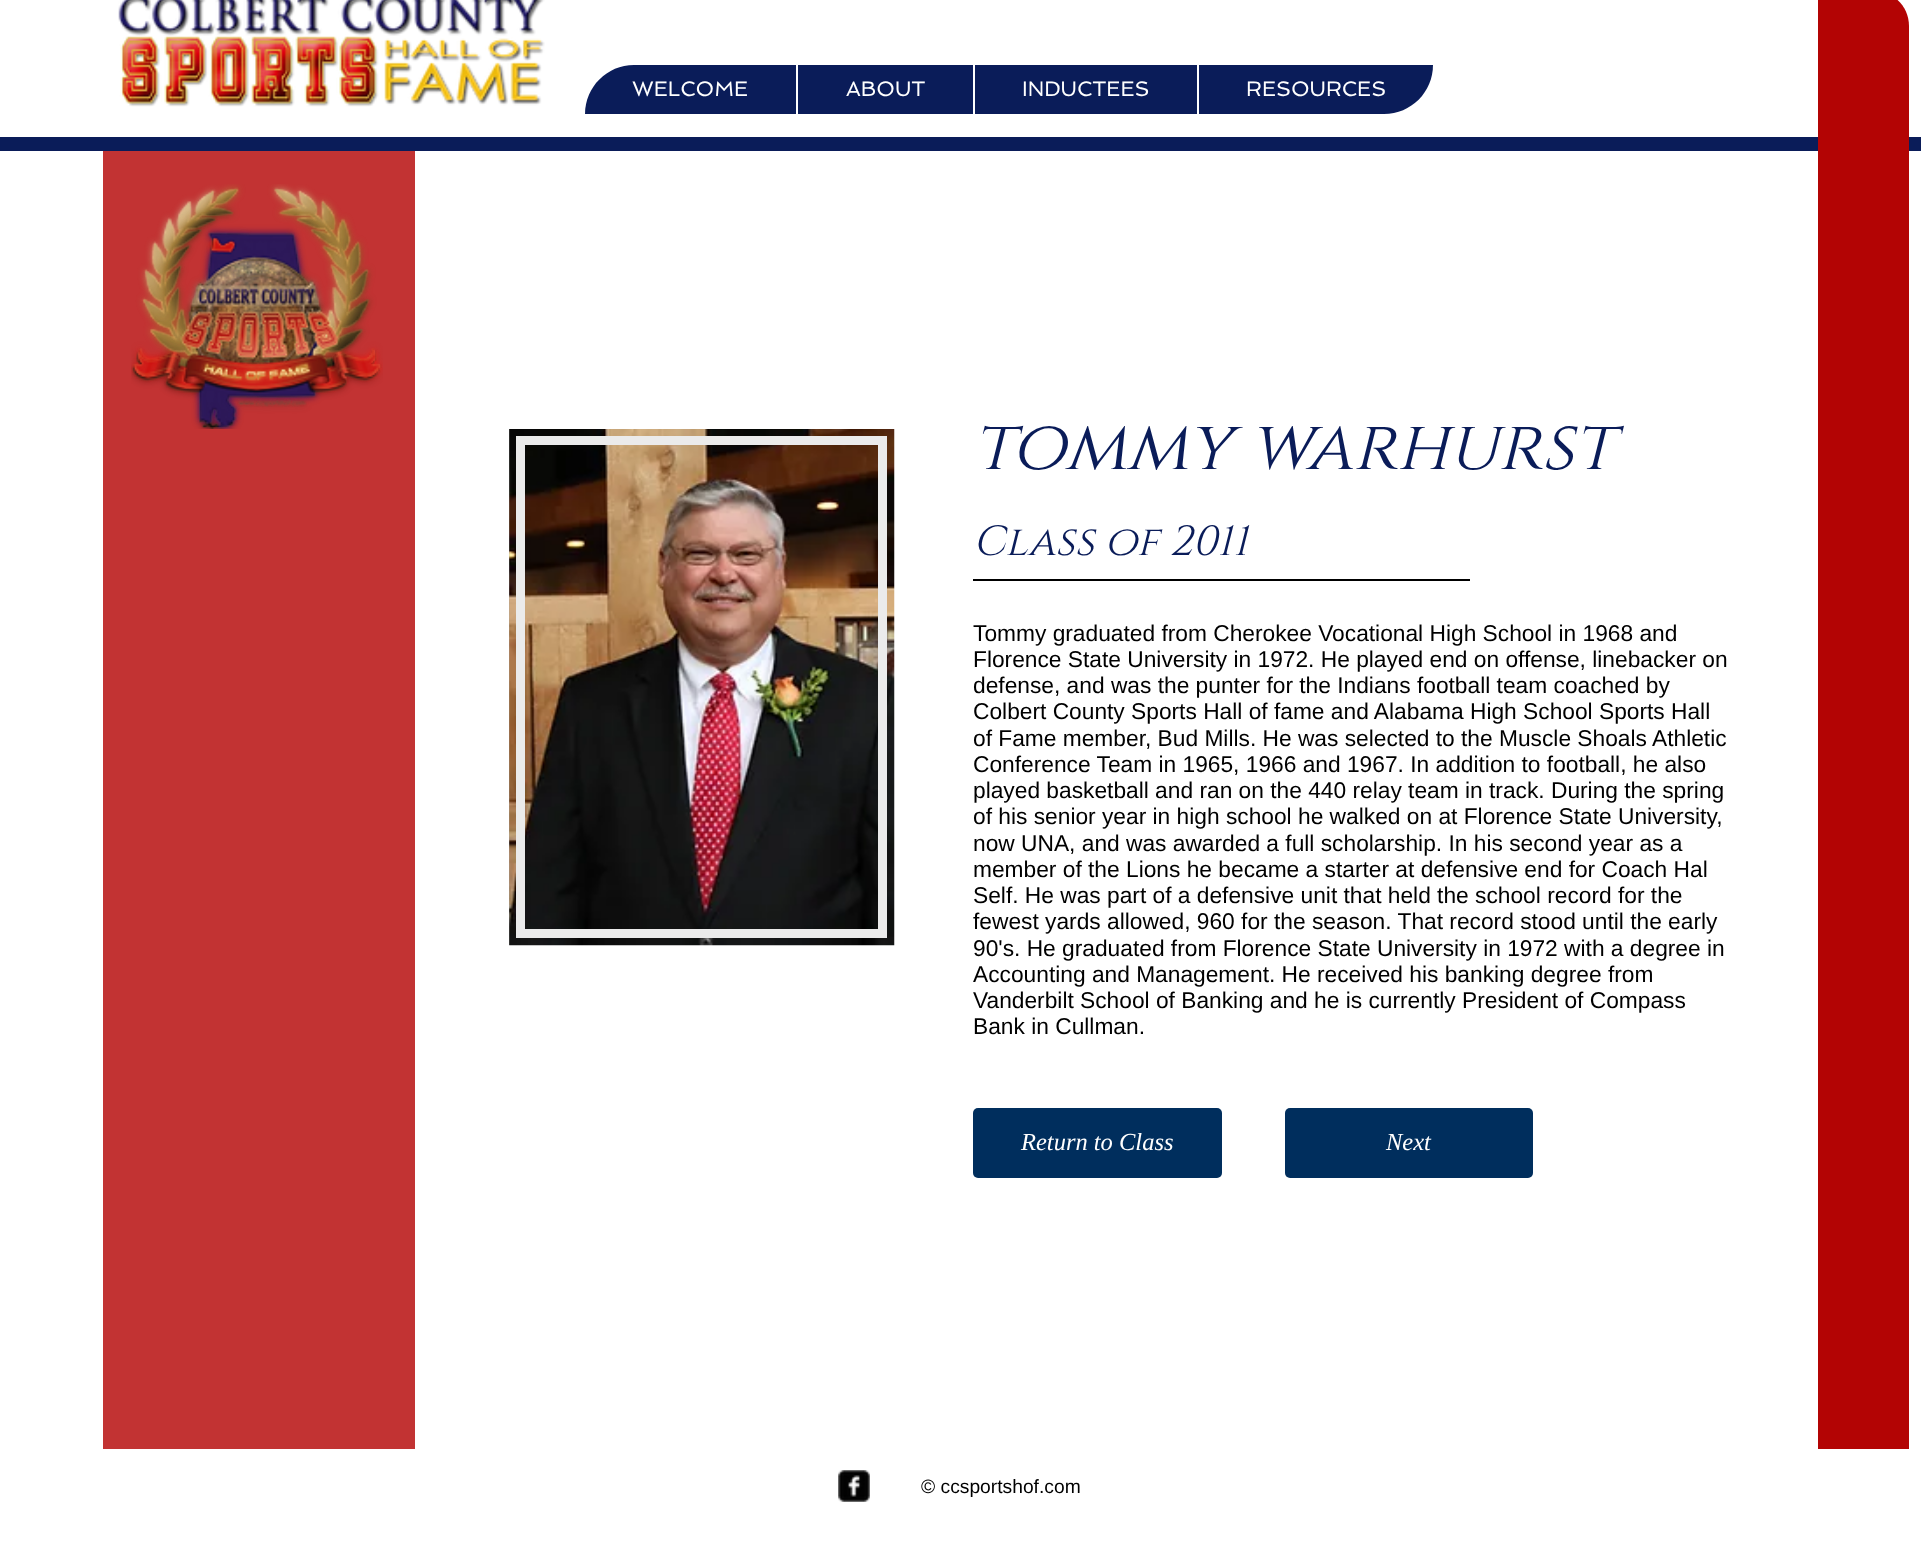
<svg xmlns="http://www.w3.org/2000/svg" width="1921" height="1548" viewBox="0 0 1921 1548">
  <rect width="100%" height="100%" fill="#fff"/>
  <image x="118" y="0" width="427" height="107" href="img/1.png"/>
  <path d="M634 65H1433C1433 92 1411 114 1384 114H585C585 87 607 65 634 65Z" fill="#0a1c59"/>
  <path d="M796 65h2v49H796z" fill="#fff"/>
  <path d="M973 65h2v49H973z" fill="#fff"/>
  <path d="M1197 65h2v49H1197z" fill="#fff"/>
  <path d="M0 137h1921v14H0z" fill="#0a1c59"/>
  <path d="M103 151h312v1298H103z" fill="#c23333"/>
  <image x="131" y="184" width="252" height="245" href="img/2.png"/>
  <image x="131" y="187" width="251" height="242" href="img/3.png"/>
  <path d="M511 431h381v512H511z" fill="none" stroke="#a0a09f" stroke-width="4"/>
  <image x="509" y="429" width="386" height="517" href="img/4.png"/>
  <path d="M520.5 440.5h362v493H520.5z" fill="none" stroke="#ebebeb" stroke-width="9"/>
  <path d="M1818-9H1874C1893.5-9 1909 6.5 1909 26V1449H1818Z" fill="#b30404"/>
  <path d="M973 579h497v2H973z" fill="#000"/>
  <rect x="973" y="1108" width="249" height="70" rx="5" fill="#002e5d"/>
  <rect x="1285" y="1108" width="248" height="70" rx="5" fill="#002e5d"/>
  <image x="838" y="1470" width="32" height="32" href="img/5.png"/>
  <g font-family="Spinnaker" font-size="21" fill="#fff">
    <text x="632" y="96">WELCOME</text>
    <text x="846" y="96">ABOUT</text>
    <text x="1022" y="96">INDUCTEES</text>
    <text x="1246" y="96">RESOURCES</text>
  </g>
  <text x="973" y="469" font-family="Cinzel" font-size="70" font-style="italic" fill="#0a1c59">tommy warhurst</text>
  <text x="973" y="555" font-family="Cinzel" font-size="42" font-style="italic" fill="#0a1c59">Class of 2011</text>
  <g font-family="Liberation Sans" font-size="22.75" fill="#000">
    <text x="973" y="641">Tommy graduated from Cherokee Vocational High School in 1968 and</text>
    <text x="973" y="667">Florence State University in 1972. He played end on offense, linebacker on</text>
    <text x="973" y="693">defense, and was the punter for the Indians football team coached by</text>
    <text x="973" y="719">Colbert County Sports Hall of fame and Alabama High School Sports Hall</text>
    <text x="973" y="746">of Fame member, Bud Mills. He was selected to the Muscle Shoals Athletic</text>
    <text x="973" y="772">Conference Team in 1965, 1966 and 1967. In addition to football, he also</text>
    <text x="973" y="798">played basketball and ran on the 440 relay team in track. During the spring</text>
    <text x="973" y="824">of his senior year in high school he walked on at Florence State University,</text>
    <text x="973" y="851">now UNA, and was awarded a full scholarship. In his second year as a</text>
    <text x="973" y="877">member of the Lions he became a starter at defensive end for Coach Hal</text>
    <text x="973" y="903">Self. He was part of a defensive unit that held the school record for the</text>
    <text x="973" y="929">fewest yards allowed, 960 for the season. That record stood until the early</text>
    <text x="973" y="956">90's. He graduated from Florence State University in 1972 with a degree in</text>
    <text x="973" y="982">Accounting and Management. He received his banking degree from</text>
    <text x="973" y="1008">Vanderbilt School of Banking and he is currently President of Compass</text>
    <text x="973" y="1034">Bank in Cullman.</text>
  </g>
  <g font-family="Liberation Serif" font-size="24.5" font-style="italic" fill="#fff">
    <text x="1021" y="1150">Return to Class</text>
    <text x="1386" y="1150">Next</text>
  </g>
  <text x="921" y="1493" font-family="Liberation Sans" font-size="19.25" fill="#000">© ccsportshof.com</text>
</svg>
